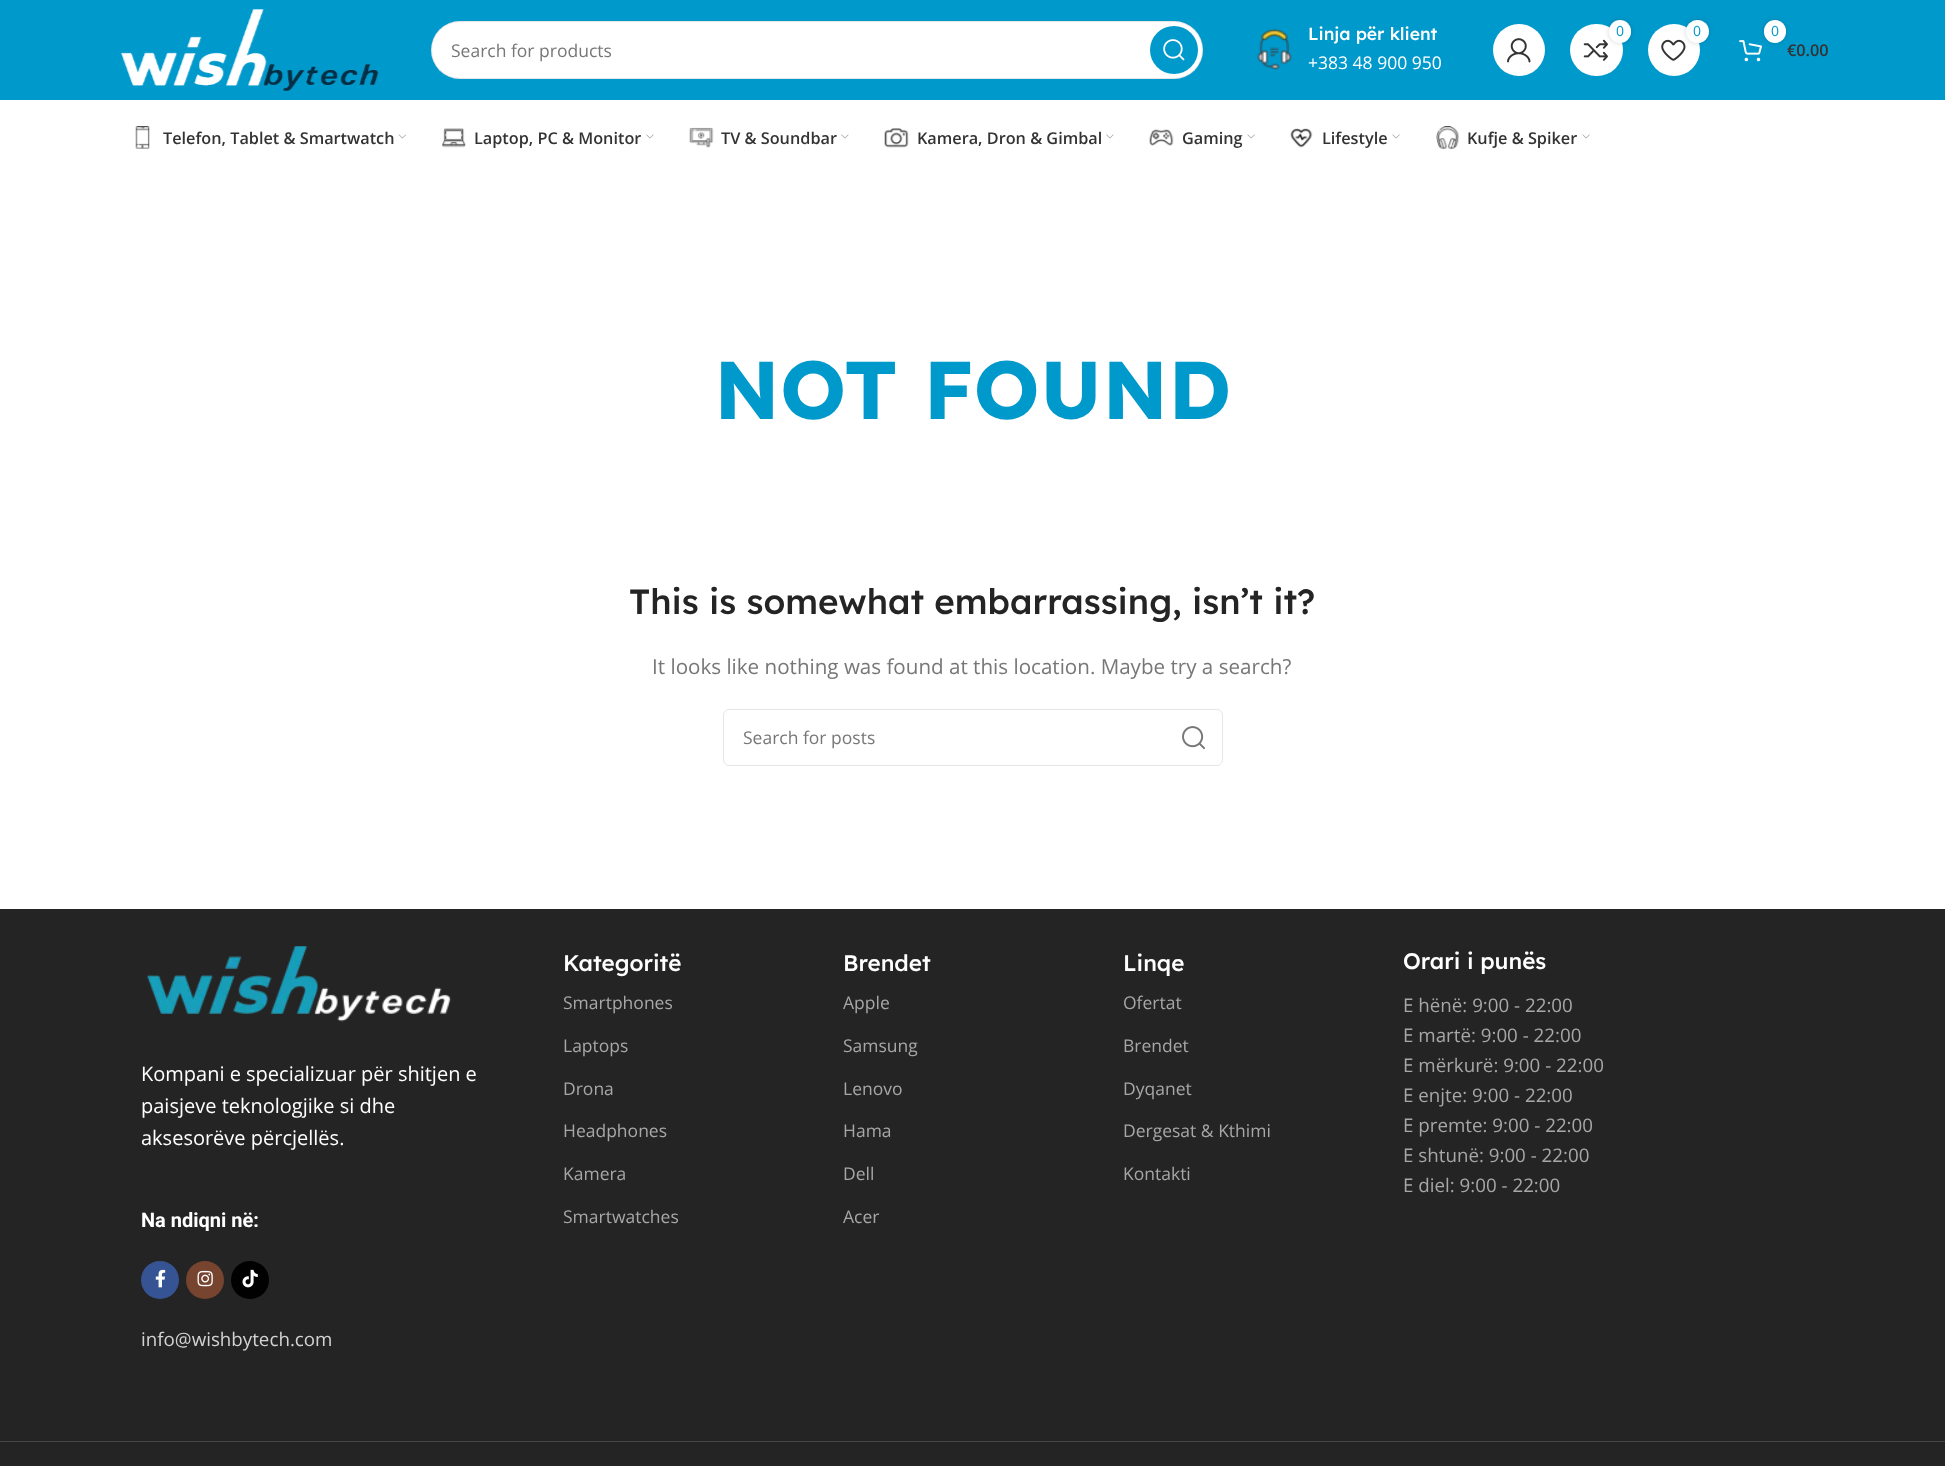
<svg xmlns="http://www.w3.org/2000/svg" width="1945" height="1466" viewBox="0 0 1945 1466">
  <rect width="100%" height="100%" fill="#fff"/>
  <path d="M0 0h1945v100H0z" fill="#09c"/>
  <image x="121" y="9" width="258" height="82" href="img/1.png"/>
  <rect x="431" y="21" width="772" height="58" rx="29" fill="#fff"/>
  <rect x="431.5" y="21.5" width="771" height="57" rx="28.5" fill="none" stroke="#0000001a"/>
  <circle cx="1174" cy="50" r="24" fill="#09c"/>
  <image x="1163" y="39" width="22" height="22" href="img/2.png"/>
  <image x="1257" y="28" width="35" height="42" href="img/3.png"/>
  <circle cx="1519" cy="50" r="26" fill="#fff"/>
  <image x="1507" y="38" width="24" height="25" href="img/4.png"/>
  <rect x="1570" y="24" width="53" height="52" rx="26" fill="#fff"/>
  <image x="1583" y="39" width="25" height="22" href="img/5.png"/>
  <rect x="1609" y="20" width="22" height="23" rx="11" fill="#0000002b" filter="blur(2.5px)"/>
  <rect x="1609" y="20" width="22" height="23" rx="11" fill="#fff"/>
  <circle cx="1674" cy="50" r="26" fill="#fff"/>
  <image x="1661" y="39" width="25" height="22" href="img/6.png"/>
  <rect x="1686" y="20" width="23" height="23" rx="11.5" fill="#0000002b" filter="blur(2.5px)"/>
  <circle cx="1697.5" cy="31.5" r="11.5" fill="#fff"/>
  <image x="1739" y="40" width="23" height="22" href="img/7.png"/>
  <rect x="1764" y="20" width="22" height="23" rx="11" fill="#0000002b" filter="blur(2.5px)"/>
  <rect x="1764" y="20" width="22" height="23" rx="11" fill="#fff"/>
  <image x="135" y="126" width="15" height="23" href="img/8.png"/>
  <image x="398" y="134" width="8" height="5" href="img/9.png"/>
  <image x="442" y="128" width="24" height="20" href="img/10.png"/>
  <image x="646" y="134" width="8" height="5" href="img/11.png"/>
  <image x="689" y="127" width="25" height="21" href="img/12.png"/>
  <image x="841" y="134" width="8" height="5" href="img/11.png"/>
  <image x="884" y="128" width="25" height="20" href="img/13.png"/>
  <image x="1106" y="134" width="8" height="5" href="img/11.png"/>
  <image x="1149" y="129" width="25" height="17" href="img/14.png"/>
  <image x="1247" y="134" width="8" height="5" href="img/15.png"/>
  <image x="1290" y="128" width="23" height="20" href="img/16.png"/>
  <image x="1392" y="134" width="8" height="5" href="img/15.png"/>
  <image x="1436" y="126" width="23" height="23" href="img/17.png"/>
  <image x="1582" y="134" width="8" height="5" href="img/15.png"/>
  <rect x="723.5" y="709.5" width="499" height="56" rx="5.5" fill="none" stroke="#e6e6e6"/>
  <image x="1182" y="726" width="23" height="24" href="img/18.png"/>
  <path d="M0 909h1945v557H0z" fill="#242424"/>
  <image x="147" y="946" width="304" height="76" href="img/19.png"/>
  <circle cx="160" cy="1280" r="19" fill="#365493"/>
  <image x="155" y="1269" width="11" height="19" href="img/20.png"/>
  <circle cx="205" cy="1280" r="19" fill="#774430"/>
  <image x="197" y="1270" width="16" height="17" href="img/21.png"/>
  <circle cx="250" cy="1280" r="19" fill="#010101"/>
  <image x="242" y="1269" width="16" height="19" href="img/22.png"/>
  <path d="M0 1441h1945v1H0z" fill="#454545"/>
  <text x="451" y="57" font-family="Open Sans" font-size="17.5" fill="#777">Search for products</text>
  <text x="1308" y="40" font-family="Lexend Deca" font-size="17.5" font-weight="500" fill="#fff">Linja për klient</text>
  <text x="1308" y="69" font-family="Open Sans" font-size="17.5" fill="#fff">+383 48 900 950</text>
  <g font-family="Open Sans" font-size="14" fill="#09c">
    <text x="1616" y="36">0</text>
    <text x="1693" y="36">0</text>
    <text x="1771" y="36">0</text>
  </g>
  <g font-family="Open Sans" font-size="16.25" font-weight="600" fill="#333">
    <text x="1787" y="56">€0.00</text>
    <text x="163" y="144">Telefon, Tablet &amp; Smartwatch</text>
    <text x="474" y="144">Laptop, PC &amp; Monitor</text>
    <text x="721" y="144">TV &amp; Soundbar</text>
    <text x="917" y="144">Kamera, Dron &amp; Gimbal</text>
    <text x="1182" y="144">Gaming</text>
    <text x="1322" y="144">Lifestyle</text>
    <text x="1467" y="144">Kufje &amp; Spiker</text>
  </g>
  <text x="714" y="419" font-family="Lexend Deca" font-size="81.75" font-weight="bold" fill="#09c">NOT FOUND</text>
  <text x="629" y="614" font-family="Lexend Deca" font-size="35" font-weight="500" fill="#242424">This is somewhat embarrassing, isn’t it?</text>
  <text x="652" y="674" font-family="Open Sans" font-size="20.6" fill="#777">It looks like nothing was found at this location. Maybe try a search?</text>
  <text x="743" y="744" font-family="Open Sans" font-size="17.5" fill="#777">Search for posts</text>
  <g font-family="Open Sans" font-size="20" fill="#fff">
    <text x="141" y="1081">Kompani e specializuar për shitjen e</text>
    <text x="141" y="1113">paisjeve teknologjike si dhe</text>
    <text x="141" y="1145">aksesorëve përcjellës.</text>
  </g>
  <text x="141" y="1227" font-family="Roboto" font-size="20" font-weight="bold" fill="#fff">Na ndiqni në:</text>
  <text x="141" y="1346" font-family="Open Sans" font-size="18.75" fill="#d3d3d3">info@wishbytech.com</text>
  <text x="563" y="971" font-family="Lexend Deca" font-size="22.5" font-weight="500" fill="#fff">Kategoritë</text>
  <g font-family="Open Sans" font-size="17.5" fill="#a7a7a7">
    <text x="563" y="1009">Smartphones</text>
    <text x="563" y="1052">Laptops</text>
    <text x="563" y="1095">Drona</text>
    <text x="563" y="1137">Headphones</text>
    <text x="563" y="1180">Kamera</text>
    <text x="563" y="1223">Smartwatches</text>
  </g>
  <text x="843" y="971" font-family="Lexend Deca" font-size="22.5" font-weight="500" fill="#fff">Brendet</text>
  <g font-family="Open Sans" font-size="17.5" fill="#a7a7a7">
    <text x="843" y="1009">Apple</text>
    <text x="843" y="1052">Samsung</text>
    <text x="843" y="1095">Lenovo</text>
    <text x="843" y="1137">Hama</text>
    <text x="843" y="1180">Dell</text>
    <text x="843" y="1223">Acer</text>
  </g>
  <text x="1123" y="971" font-family="Lexend Deca" font-size="22.5" font-weight="500" fill="#fff">Linqe</text>
  <g font-family="Open Sans" font-size="17.5" fill="#a7a7a7">
    <text x="1123" y="1009">Ofertat</text>
    <text x="1123" y="1052">Brendet</text>
    <text x="1123" y="1095">Dyqanet</text>
    <text x="1123" y="1137">Dergesat &amp; Kthimi</text>
    <text x="1123" y="1180">Kontakti</text>
  </g>
  <text x="1403" y="969" font-family="Lexend Deca" font-size="22.5" font-weight="500" fill="#fff">Orari i punës</text>
  <g font-family="Open Sans" font-size="18.75" fill="#a7a7a7">
    <text x="1403" y="1012">E hënë: 9:00 - 22:00</text>
    <text x="1403" y="1042">E martë: 9:00 - 22:00</text>
    <text x="1403" y="1072">E mërkurë: 9:00 - 22:00</text>
    <text x="1403" y="1102">E enjte: 9:00 - 22:00</text>
    <text x="1403" y="1132">E premte: 9:00 - 22:00</text>
    <text x="1403" y="1162">E shtunë: 9:00 - 22:00</text>
    <text x="1403" y="1192">E diel: 9:00 - 22:00</text>
  </g>
</svg>
